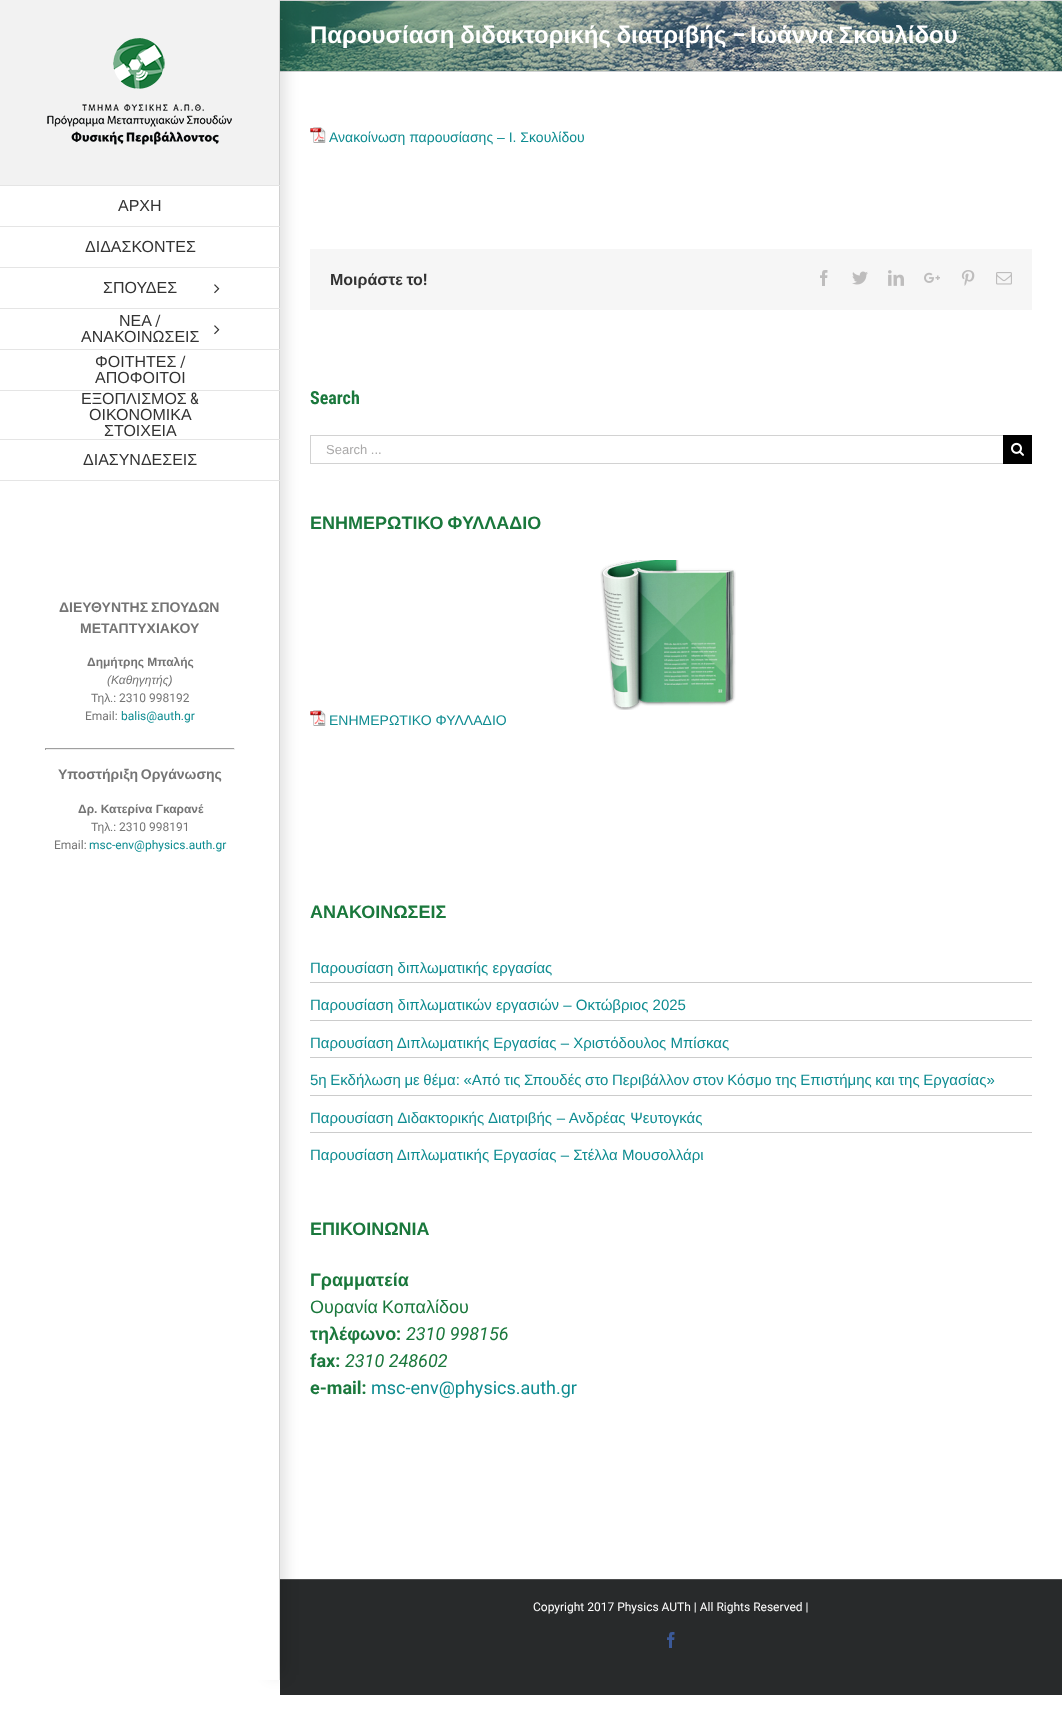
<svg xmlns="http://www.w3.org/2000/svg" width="1062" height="1720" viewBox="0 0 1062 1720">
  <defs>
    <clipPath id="clip1"><path d="M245 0H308V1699H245ZM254 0H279V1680H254Z" clip-rule="evenodd"/></clipPath>
  </defs>
  <rect width="100%" height="100%" fill="#fff"/>
  <path d="M280 1h782v70H280z" fill="#1a783c"/>
  <image x="280" y="1" width="782" height="70" href="img/1.png"/>
  <path d="M280 0h782v1H280z" fill="#d2d3d4"/>
  <path d="M280 71h782v1H280z" fill="#d2d3d4"/>
  <path d="M0 0h279v185H0z" fill="#f2f2f2"/>
  <image x="47" y="38" width="185" height="107" href="img/2.png"/>
  <path d="M279 0h1v1680H279z" fill="#e5e5e5"/>
  <path d="M280 1580h782v115H280z" fill="#282a2b"/>
  <path d="M280 1579h782v1H280z" fill="#4b4c4d"/>
  <g clip-path="url(#clip1)">
    <path d="M269 5h15v1670H269z" fill="#00000024" filter="blur(7.5px)"/>
  </g>
  <path d="M0 185h280v1H0z" fill="#e5e5e5"/>
  <path d="M0 226h280v1H0z" fill="#e5e5e5"/>
  <path d="M0 267h280v1H0z" fill="#e5e5e5"/>
  <path d="M0 308h280v1H0z" fill="#e5e5e5"/>
  <image x="214" y="284" width="6" height="10" href="img/3.png"/>
  <path d="M0 349h280v1H0z" fill="#e5e5e5"/>
  <image x="214" y="325" width="6" height="10" href="img/3.png"/>
  <path d="M0 390h280v1H0z" fill="#e5e5e5"/>
  <path d="M0 439h280v1H0z" fill="#e5e5e5"/>
  <path d="M0 480h280v1H0z" fill="#e5e5e5"/>
  <path d="M45 748h190v1H45z" fill="#9f9f9f"/>
  <path d="M234 748h1v2H234z" fill="#eee"/>
  <path d="M45 749h190v1H45z" fill="#eee"/>
  <path d="M45 748h1v2H45z" fill="#9f9f9f"/>
  <image x="310" y="127" width="16" height="16" href="img/4.png"/>
  <path d="M310 249h722v61H310z" fill="#f6f6f6"/>
  <image x="820" y="270" width="8" height="16" href="img/5.png"/>
  <image x="852" y="271" width="16" height="14" href="img/6.png"/>
  <image x="888" y="270" width="16" height="16" href="img/7.png"/>
  <image x="924" y="272" width="16" height="11" href="img/8.png"/>
  <image x="961" y="270" width="14" height="16" href="img/9.png"/>
  <image x="996" y="272" width="16" height="13" href="img/10.png"/>
  <path d="M310 435h693v1H310z" fill="#d2d2d2"/>
  <path d="M310 463h693v1H310z" fill="#d2d2d2"/>
  <path d="M310 435h1v29H310z" fill="#d2d2d2"/>
  <path d="M1003 435h29v29H1003z" fill="#000"/>
  <image x="1011" y="442" width="13" height="14" href="img/11.png"/>
  <image x="600" y="560" width="136" height="150" href="img/12.png"/>
  <image x="310" y="710" width="16" height="16" href="img/4.png"/>
  <path d="M310 982h722v1H310z" fill="#ccc"/>
  <path d="M310 1020h722v1H310z" fill="#ccc"/>
  <path d="M310 1057h722v1H310z" fill="#ccc"/>
  <path d="M310 1095h722v1H310z" fill="#ccc"/>
  <path d="M310 1132h722v1H310z" fill="#ccc"/>
  <image x="667" y="1632" width="8" height="16" href="img/13.png"/>
  <text x="310" y="43" word-spacing="-1" font-family="Liberation Sans" font-size="24" font-weight="bold" fill="#fff">Παρουσίαση διδακτορικής διατριβής</text>
  <text x="732" y="43" font-family="Roboto Condensed" font-size="24" font-weight="bold" fill="#fff">–</text>
  <text x="750" y="43" word-spacing="-1" font-family="Liberation Sans" font-size="24" font-weight="bold" fill="#fff">Ιωάννα Σκουλίδου</text>
  <g font-family="Liberation Sans" font-size="16" fill="#333">
    <text x="118" y="211">ΑΡΧΗ</text>
    <text x="85" y="252">ΔΙΔΑΣΚΟΝΤΕΣ</text>
    <text x="103" y="293">ΣΠΟΥΔΕΣ</text>
    <text x="119" y="326">ΝΕΑ</text>
  </g>
  <text x="155" y="326" font-family="Roboto Condensed" font-size="16" fill="#333">/</text>
  <g font-family="Liberation Sans" font-size="16" fill="#333">
    <text x="81" y="342">ΑΝΑΚΟΙΝΩΣΕΙΣ</text>
    <text x="95" y="367">ΦΟΙΤΗΤΕΣ</text>
  </g>
  <text x="180" y="367" font-family="Roboto Condensed" font-size="16" fill="#333">/</text>
  <g font-family="Liberation Sans" font-size="16" fill="#333">
    <text x="95" y="383">ΑΠΟΦΟΙΤΟΙ</text>
    <text x="81" y="404">ΕΞΟΠΛΙΣΜΟΣ</text>
  </g>
  <text x="190" y="404" font-family="Roboto Condensed" font-size="16" fill="#333">&amp;</text>
  <g font-family="Liberation Sans" font-size="16" fill="#333">
    <text x="89" y="420">ΟΙΚΟΝΟΜΙΚΑ</text>
    <text x="104" y="436">ΣΤΟΙΧΕΙΑ</text>
    <text x="83" y="465">ΔΙΑΣΥΝΔΕΣΕΙΣ</text>
  </g>
  <g font-family="Liberation Sans" font-size="14" font-weight="bold" fill="#747474">
    <text x="59" y="612" word-spacing="-1">ΔΙΕΥΘΥΝΤΗΣ ΣΠΟΥΔΩΝ</text>
    <text x="80" y="633">ΜΕΤΑΠΤΥΧΙΑΚΟΥ</text>
  </g>
  <text x="87" y="666" font-family="Liberation Sans" font-size="12" font-weight="bold" fill="#747474">Δημήτρης Μπαλής</text>
  <text x="107" y="684" font-family="Liberation Sans" font-size="12" font-style="italic" fill="#747474">(Καθηγητής)</text>
  <text x="91" y="702" font-family="Liberation Sans" font-size="12" fill="#747474">Τηλ</text>
  <g font-family="Roboto" font-size="12" fill="#747474">
    <text x="110" y="702">.: 2310 998192</text>
    <text x="85" y="720">Email:</text>
  </g>
  <text x="121" y="720" font-family="Roboto" font-size="12" fill="#0e8c91">balis@auth.gr</text>
  <text x="58" y="779" word-spacing="-1" font-family="Liberation Sans" font-size="14" font-weight="bold" fill="#747474">Υποστήριξη Οργάνωσης</text>
  <text x="78" y="813" font-family="Liberation Sans" font-size="12" font-weight="bold" fill="#747474">Δρ. Κατερίνα Γκαρανέ</text>
  <text x="91" y="831" font-family="Liberation Sans" font-size="12" fill="#747474">Τηλ</text>
  <g font-family="Roboto" font-size="12" fill="#747474">
    <text x="110" y="831">.: 2310 998191</text>
    <text x="54" y="849">Email:</text>
  </g>
  <text x="89" y="849" font-family="Roboto" font-size="12" fill="#0e8c91">msc-env@physics.auth.gr</text>
  <text x="329" y="142" font-family="Liberation Sans" font-size="14" fill="#0e8c91">Ανακοίνωση παρουσίασης – Ι. Σκουλίδου</text>
  <text x="330" y="285" word-spacing="-1" font-family="Liberation Sans" font-size="16" font-weight="bold" fill="#333">Μοιράστε το</text>
  <text x="423" y="285" font-family="Roboto Condensed" font-size="16" font-weight="bold" fill="#333">!</text>
  <text x="310" y="404" font-family="Roboto Condensed" font-size="18" font-weight="bold" fill="#1a783c">Search</text>
  <text x="326" y="454" font-family="Liberation Sans" font-size="13" fill="#aaa9a9">Search ...</text>
  <text x="310" y="529" word-spacing="-1" font-family="Liberation Sans" font-size="18" font-weight="bold" fill="#1a783c">ΕΝΗΜΕΡΩΤΙΚΟ ΦΥΛΛΑΔΙΟ</text>
  <text x="329" y="725" font-family="Liberation Sans" font-size="14" fill="#0e8c91">ΕΝΗΜΕΡΩΤΙΚΟ ΦΥΛΛΑΔΙΟ</text>
  <text x="310" y="918" font-family="Liberation Sans" font-size="18" font-weight="bold" fill="#1a783c">ΑΝΑΚΟΙΝΩΣΕΙΣ</text>
  <g font-family="Liberation Sans" font-size="15" fill="#0e8c91">
    <text x="310" y="973">Παρουσίαση διπλωματικής εργασίας</text>
    <text x="310" y="1010">Παρουσίαση διπλωματικών εργασιών – Οκτώβριος 2025</text>
    <text x="310" y="1048">Παρουσίαση Διπλωματικής Εργασίας – Χριστόδουλος Μπίσκας</text>
    <text x="310" y="1085" word-spacing="-0.6">5η Εκδήλωση με θέμα: «Από τις Σπουδές στο Περιβάλλον στον Κόσμο της Επιστήμης και της Εργασίας»</text>
    <text x="310" y="1123" word-spacing="0.5">Παρουσίαση Διδακτορικής Διατριβής – Ανδρέας Ψευτογκάς</text>
    <text x="310" y="1160">Παρουσίαση Διπλωματικής Εργασίας – Στέλλα Μουσολλάρι</text>
  </g>
  <g font-family="Liberation Sans" font-size="18" font-weight="bold" fill="#1a783c">
    <text x="310" y="1235">ΕΠΙΚΟΙΝΩΝΙΑ</text>
    <text x="310" y="1286">Γραμματεία</text>
  </g>
  <text x="310" y="1313" word-spacing="-1" font-family="Liberation Sans" font-size="18" fill="#1a783c">Ουρανία Κοπαλίδου</text>
  <text x="310" y="1340" font-family="Liberation Sans" font-size="18" font-weight="bold" fill="#1a783c">τηλέφωνο</text>
  <text x="396" y="1340" font-family="Roboto" font-size="18" font-weight="bold" fill="#1a783c">:</text>
  <text x="406" y="1340" font-family="Roboto" font-size="18" font-style="italic" fill="#1a783c">2310 998156</text>
  <text x="310" y="1367" font-family="Roboto" font-size="18" font-weight="bold" fill="#1a783c">fax:</text>
  <text x="345" y="1367" font-family="Roboto" font-size="18" font-style="italic" fill="#1a783c">2310 248602</text>
  <text x="310" y="1394" font-family="Roboto" font-size="18" font-weight="bold" fill="#1a783c">e-mail:</text>
  <text x="371" y="1394" font-family="Roboto" font-size="18" fill="#0e8c91">msc-env@physics.auth.gr</text>
  <text x="533" y="1611" font-family="Roboto" font-size="12" fill="#fff">Copyright 2017 Physics AUTh | All Rights Reserved |</text>
</svg>
